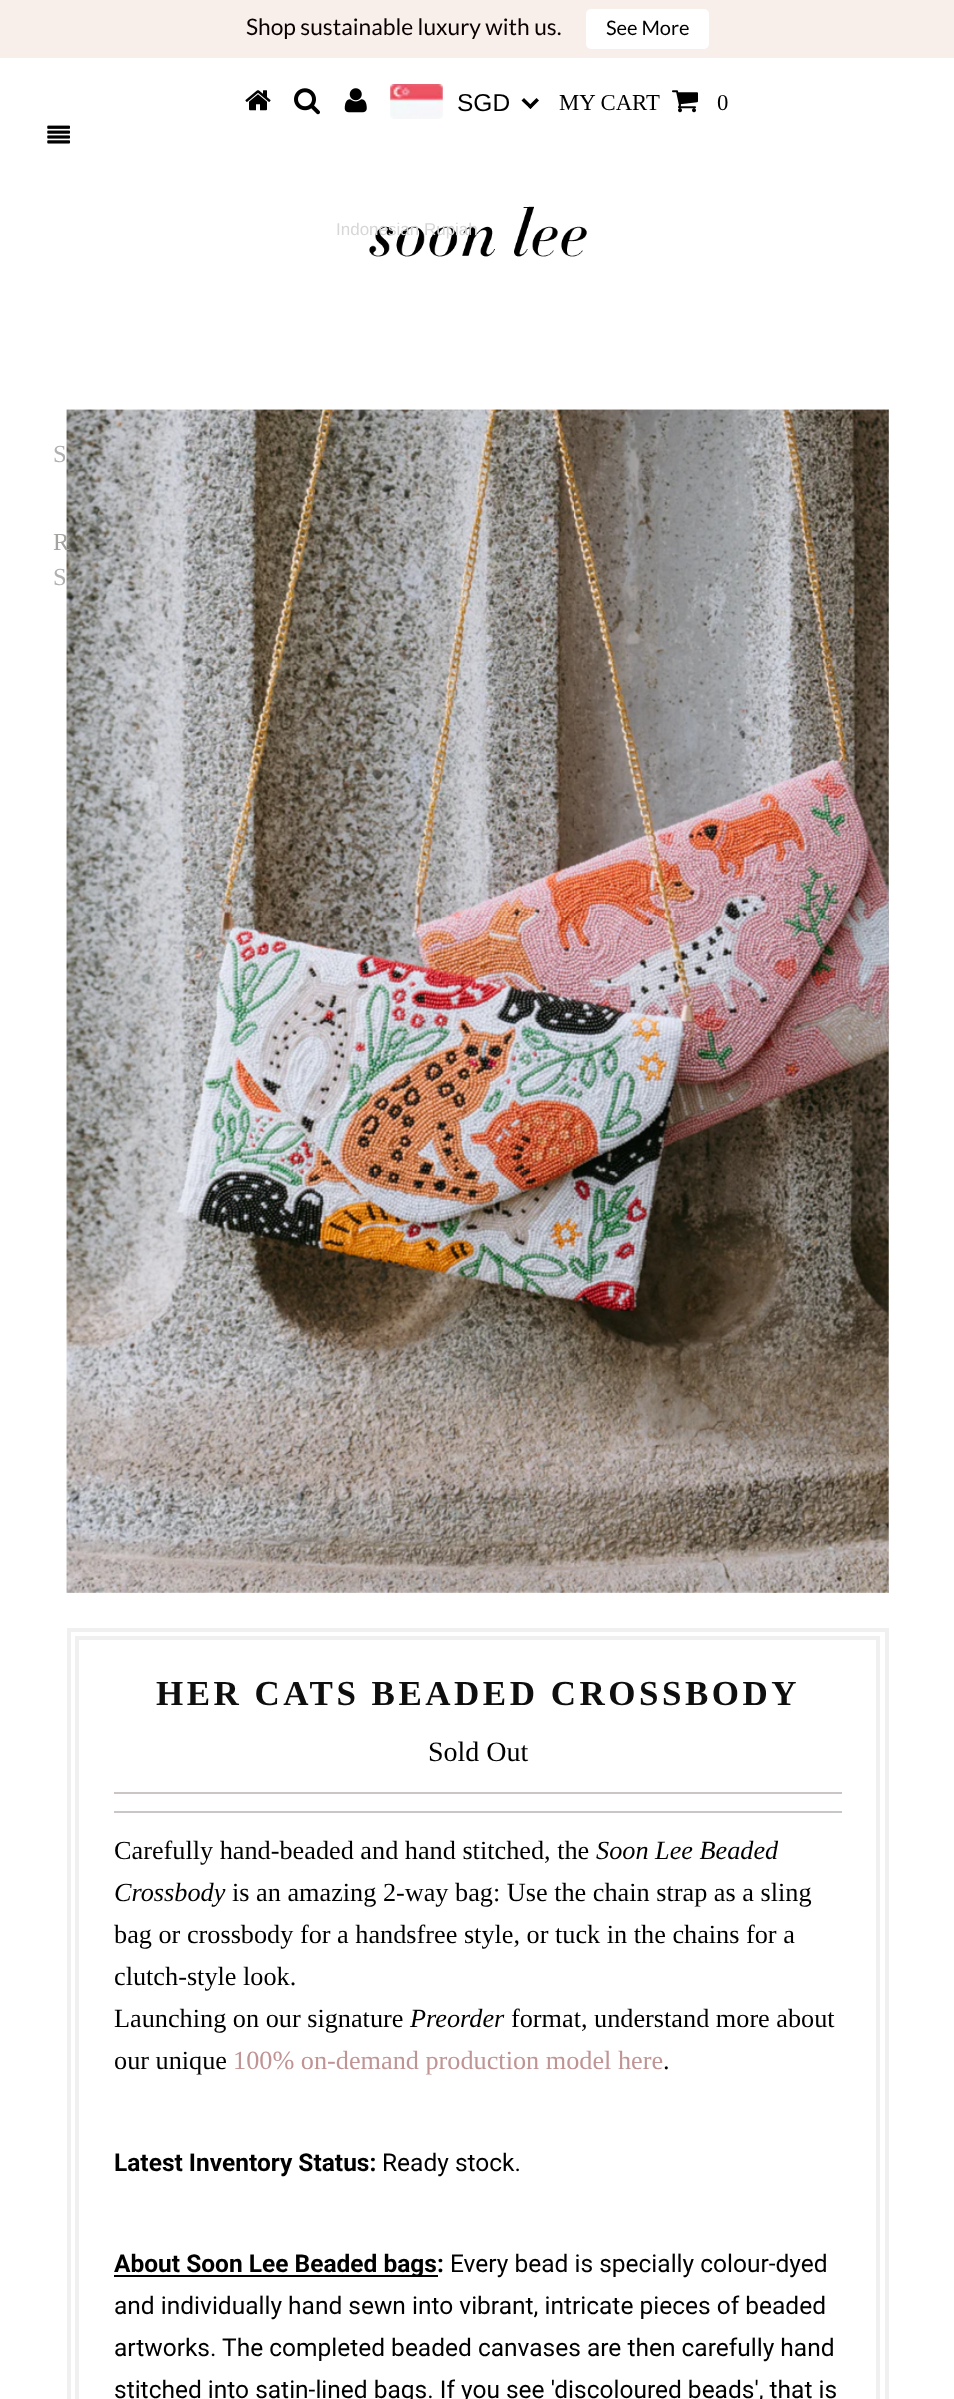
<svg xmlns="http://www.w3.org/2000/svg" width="954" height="2399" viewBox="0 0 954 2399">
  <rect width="100%" height="100%" fill="#fff"/>
  <path d="M0 0h954v58H0z" fill="#f8eeea"/>
  <rect x="586" y="9" width="123" height="40" rx="5" fill="#fff"/>
  <image x="47" y="125" width="23" height="19" href="img/1.png"/>
  <image x="245" y="90" width="26" height="21" href="img/2.png"/>
  <image x="294" y="88" width="26" height="27" href="img/3.png"/>
  <image x="344" y="88" width="23" height="25" href="img/4.png"/>
  <image x="390" y="84" width="53" height="35" href="img/5.png"/>
  <path d="M536.5 98L539 100.5L530.5 109L528 106.5Z" fill="#000"/>
  <path d="M524 98L532.5 106.5L530.5 109L521.5 100.5Z" fill="#000"/>
  <image x="672" y="90" width="26" height="23" href="img/6.png"/>
  <image x="369" y="206" width="218" height="51" href="img/7.png"/>
  <image x="66" y="409" width="823" height="1184" href="img/8.png"/>
  <image x="888" y="409" width="1" height="1176" href="img/9.png"/>
  <path d="M69 1630h818v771H69z" fill="none" stroke="#f0f0f0" stroke-width="4"/>
  <path d="M77 1638h801v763H77z" fill="none" stroke="#f0f0f0" stroke-width="4"/>
  <path d="M114 1792h728v2H114z" fill="#cbc6c6"/>
  <path d="M114 1811h728v2H114z" fill="#cbc6c6"/>
  <path d="M114 2275h324v2H114z" fill="#000"/>
  <text x="246" y="35" font-family="Lato" font-size="22.75" fill="#0a0000">Shop sustainable luxury with us.</text>
  <text x="606" y="35" font-family="Lato" font-size="20" fill="#000">See More</text>
  <text x="53" y="462" font-family="Liberation Serif" font-size="24.5" fill="#b0b0b0">S</text>
  <text x="53" y="550" font-family="Liberation Serif" font-size="24.5" fill="#a3a3a0">R</text>
  <text x="53" y="585" font-family="Liberation Serif" font-size="24.5" fill="#b0b0b0">S</text>
  <text x="457" y="111" font-family="Liberation Sans" font-size="24.5" fill="#000">SGD</text>
  <text x="336" y="235" font-family="Liberation Sans" font-size="17" fill="#d7d7d7">Indonesian Rupiah</text>
  <g font-family="Liberation Serif" font-size="22.75" fill="#000">
    <text x="559" y="110">MY CART</text>
    <text x="717" y="110">0</text>
  </g>
  <text x="156" y="1705" font-family="Liberation Serif" font-size="35" font-weight="bold" letter-spacing="3.5" fill="#0e0e0e">HER CATS BEADED CROSSBODY</text>
  <text x="428" y="1761" font-family="Liberation Serif" font-size="28" fill="#000">Sold Out</text>
  <text x="114" y="1859" font-family="Liberation Serif" font-size="26.25" fill="#000">Carefully hand-beaded and hand stitched, the</text>
  <g font-family="Liberation Serif" font-size="26.25" font-style="italic" fill="#000">
    <text x="596" y="1859">Soon Lee Beaded</text>
    <text x="114" y="1901">Crossbody</text>
  </g>
  <g font-family="Liberation Serif" font-size="26.25" fill="#000">
    <text x="232" y="1901">is an amazing 2-way bag: Use the chain strap as a sling</text>
    <text x="114" y="1943">bag or crossbody for a handsfree style, or tuck in the chains for a</text>
    <text x="114" y="1985">clutch-style look.</text>
    <text x="114" y="2027">Launching on our signature</text>
  </g>
  <text x="410" y="2027" font-family="Liberation Serif" font-size="26.25" font-style="italic" fill="#000">Preorder</text>
  <g font-family="Liberation Serif" font-size="26.25" fill="#000">
    <text x="511" y="2027">format, understand more about</text>
    <text x="114" y="2069">our unique</text>
  </g>
  <text x="233" y="2069" font-family="Liberation Serif" font-size="26.25" fill="#c09494">100% on-demand production model here</text>
  <text x="663" y="2069" font-family="Liberation Serif" font-size="26.25" fill="#000">.</text>
  <text x="114" y="2171" font-family="Roboto" font-size="24.5" font-weight="bold" fill="#000">Latest Inventory Status:</text>
  <text x="382" y="2171" font-family="Roboto" font-size="24.5" fill="#000">Ready stock.</text>
  <text x="114" y="2272" font-family="Roboto" font-size="24.5" font-weight="bold" fill="#000">About Soon Lee Beaded bags:</text>
  <g font-family="Roboto" font-size="24.5" fill="#000">
    <text x="450" y="2272">Every bead is specially colour-dyed</text>
    <text x="114" y="2314">and individually hand sewn into vibrant, intricate pieces of beaded</text>
    <text x="114" y="2356">artworks. The completed beaded canvases are then carefully hand</text>
    <text x="114" y="2398">stitched into satin-lined bags. If you see 'discoloured beads', that is</text>
  </g>
</svg>
